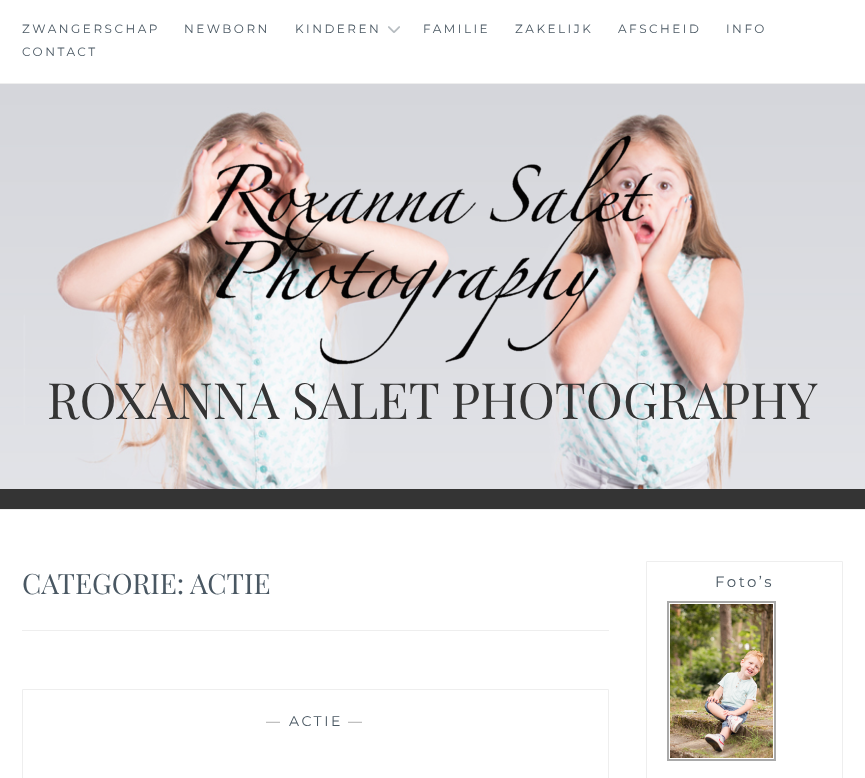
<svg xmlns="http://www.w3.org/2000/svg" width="865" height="778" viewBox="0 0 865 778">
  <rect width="100%" height="100%" fill="#fff"/>
  <path d="M0 83h865v1H0z" fill="#eee"/>
  <image x="388" y="26" width="12" height="7" href="img/1.png"/>
  <path d="M0 489h865v20H0z" fill="#343434"/>
  <image x="0" y="84" width="865" height="405" href="img/2.png"/>
  <image x="206" y="135" width="447" height="230" href="img/3.png"/>
  <path d="M0 509h865v1H0z" fill="#eee"/>
  <path d="M22 630h587v1H22z" fill="#eee"/>
  <path d="M22.5 689.5h586v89H22.5z" fill="none" stroke="#eee"/>
  <path d="M646.5 561.5h196v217H646.5z" fill="none" stroke="#eee"/>
  <path d="M668 602h107v158H668z" fill="none" stroke="#a9a9a9" stroke-width="2"/>
  <image x="670" y="604" width="103" height="154" href="img/4.png"/>
  <g font-family="Montserrat" font-size="12" letter-spacing="2.5" fill="#495762">
    <text x="22" y="33">ZWANGERSCHAP</text>
    <text x="184" y="33">NEWBORN</text>
    <text x="295" y="33">KINDEREN</text>
    <text x="423" y="33">FAMILIE</text>
    <text x="515" y="33">ZAKELIJK</text>
    <text x="618" y="33">AFSCHEID</text>
    <text x="726" y="33">INFO</text>
    <text x="22" y="56">CONTACT</text>
  </g>
  <text x="47" y="419" font-family="Playfair Display" font-size="50" fill="#343434">ROXANNA SALET PHOTOGRAPHY</text>
  <g font-family="Playfair Display" font-size="28" fill="#495762">
    <text x="22" y="594">CATEGORIE:</text>
    <text x="190" y="594">ACTIE</text>
  </g>
  <text x="266" y="726" font-family="Montserrat" font-size="14" letter-spacing="2.5" fill="#949494">—</text>
  <text x="289" y="726" font-family="Montserrat" font-size="14" letter-spacing="2.5" fill="#495762">ACTIE</text>
  <text x="348" y="726" font-family="Montserrat" font-size="14" letter-spacing="2.5" fill="#949494">—</text>
  <text x="715" y="587" font-family="Montserrat" font-size="15" letter-spacing="2.5" fill="#495762">Foto’s</text>
</svg>
